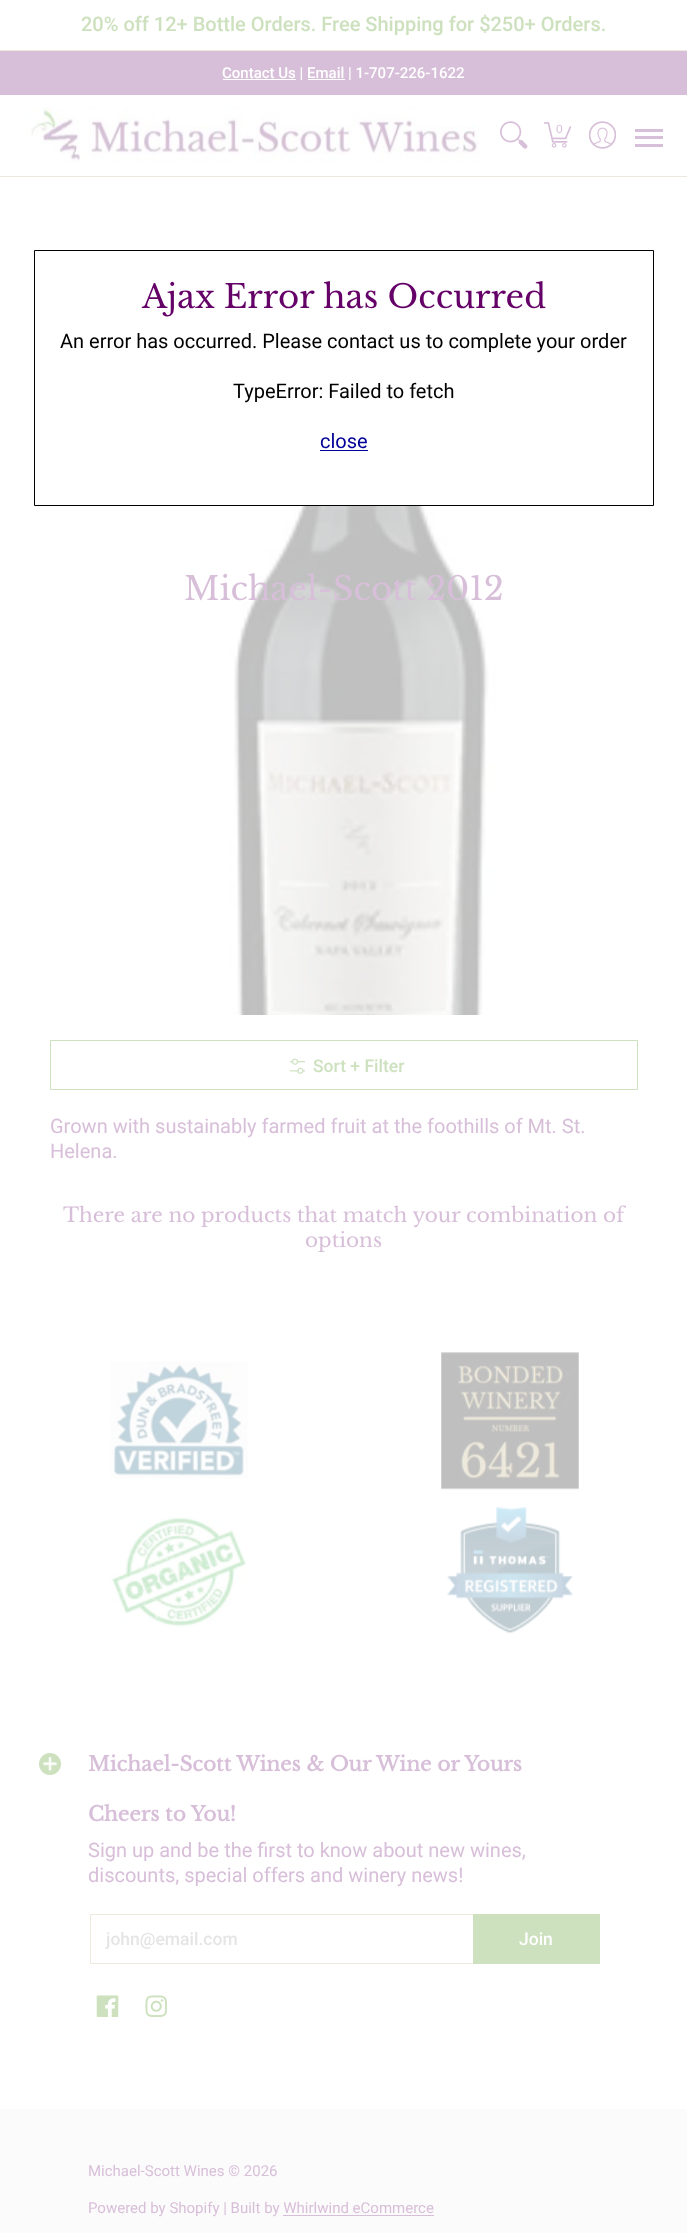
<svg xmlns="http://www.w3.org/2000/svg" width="687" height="2233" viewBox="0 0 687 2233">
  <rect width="100%" height="100%" fill="#fff"/>
  <path d="M0 50h687v1H0z" fill="#ede9dc"/>
  <path d="M0 51h687v44H0z" fill="#d8bfd9"/>
  <path d="M223 79h73v1H223z" fill="#fff"/>
  <path d="M308 79h37v1H308z" fill="#fff"/>
  <path d="M0 176h687v1H0z" fill="#ede9dc"/>
  <image x="25" y="107" width="454" height="56" href="img/1.png"/>
  <image x="500" y="121" width="28" height="28" href="img/2.png"/>
  <image x="544" y="122" width="27" height="26" href="img/3.png"/>
  <image x="589" y="121" width="27" height="28" href="img/4.png"/>
  <path d="M635 129h28v3H635z" fill="#d8bfd9"/>
  <path d="M635 144h28v3H635z" fill="#d8bfd9"/>
  <path d="M635 136h28v3H635z" fill="#d8bfd9"/>
  <path d="M34.5 250.5h619v255H34.5z" fill="none" stroke="#000"/>
  <path d="M320 450h48v1H320z" fill="#009"/>
  <image x="229" y="506" width="267" height="509" href="img/5.png"/>
  <path d="M50.5 1040.5h587v49H50.5z" fill="none" stroke="#cde1bf"/>
  <image x="289" y="1058" width="17" height="16" href="img/6.png"/>
  <image x="110" y="1361" width="138" height="118" href="img/7.png"/>
  <image x="441" y="1352" width="138" height="138" href="img/8.png"/>
  <image x="110" y="1516" width="137" height="112" href="img/9.png"/>
  <image x="447" y="1507" width="126" height="127" href="img/10.png"/>
  <circle cx="50" cy="1764" r="11" fill="#cde1bf"/>
  <image x="42" y="1756" width="16" height="16" href="img/11.png"/>
  <path d="M90.5 1914.5h384v49H90.5z" fill="none" stroke="#ede9dc"/>
  <path d="M473 1914h127v50H473z" fill="#cde1bf"/>
  <image x="96" y="1995" width="23" height="22" href="img/12.png"/>
  <image x="145" y="1995" width="23" height="22" href="img/13.png"/>
  <path d="M0 2109h687v124H0z" fill="#fcfbfb"/>
  <path d="M283 2215h151v1H283z" fill="#d8bfd9"/>
  <text x="81" y="31" font-family="Roboto" font-size="20" font-weight="500" fill="#cde1bf">20% off 12+ Bottle Orders. Free Shipping for $250+ Orders.</text>
  <text x="222" y="78" font-family="Roboto" font-size="15" font-weight="500" fill="#fff">Contact Us | Email | 1-707-226-1622</text>
  <text x="556" y="133" font-family="Liberation Sans" font-size="12" fill="#d8bfd9">0</text>
  <text x="142" y="308" font-family="Libre Baskerville" font-size="32.5" fill="#640067">Ajax Error has Occurred</text>
  <g font-family="Roboto" font-size="20" fill="#000">
    <text x="60" y="348">An error has occurred. Please contact us to complete your order</text>
    <text x="233" y="398">TypeError: Failed to fetch</text>
  </g>
  <text x="320" y="448" font-family="Roboto" font-size="20" fill="#009">close</text>
  <text x="184" y="600" font-family="Libre Baskerville" font-size="32.5" fill="#d8bfd9">Michael-Scott 2012</text>
  <text x="313" y="1072" font-family="Roboto" font-size="17.5" font-weight="500" fill="#cde1bf">Sort + Filter</text>
  <g font-family="Roboto" font-size="20" fill="#d8bfd9">
    <text x="50" y="1133">Grown with sustainably farmed fruit at the foothills of Mt. St.</text>
    <text x="50" y="1158">Helena.</text>
  </g>
  <g font-family="Libre Baskerville" font-size="20" fill="#d8bfd9">
    <text x="63" y="1222">There are no products that match your combination of</text>
    <text x="305" y="1247">options</text>
  </g>
  <g font-family="Libre Baskerville" font-size="20" font-weight="bold" fill="#d8bfd9">
    <text x="88" y="1771">Michael-Scott Wines &amp; Our Wine or Yours</text>
    <text x="88" y="1821">Cheers to You!</text>
  </g>
  <g font-family="Roboto" font-size="20" fill="#d8bfd9">
    <text x="88" y="1857">Sign up and be the first to know about new wines,</text>
    <text x="88" y="1882">discounts, special offers and winery news!</text>
  </g>
  <text x="106" y="1945" font-family="Roboto" font-size="17.5" font-weight="500" fill="#e5e5e5">john@email.com</text>
  <text x="519" y="1945" font-family="Roboto" font-size="17.5" font-weight="500" fill="#fff">Join</text>
  <g font-family="Roboto" font-size="15" fill="#d8bfd9">
    <text x="88" y="2176">Michael-Scott Wines © 2026</text>
    <text x="88" y="2213">Powered by Shopify | Built by Whirlwind eCommerce</text>
  </g>
</svg>
